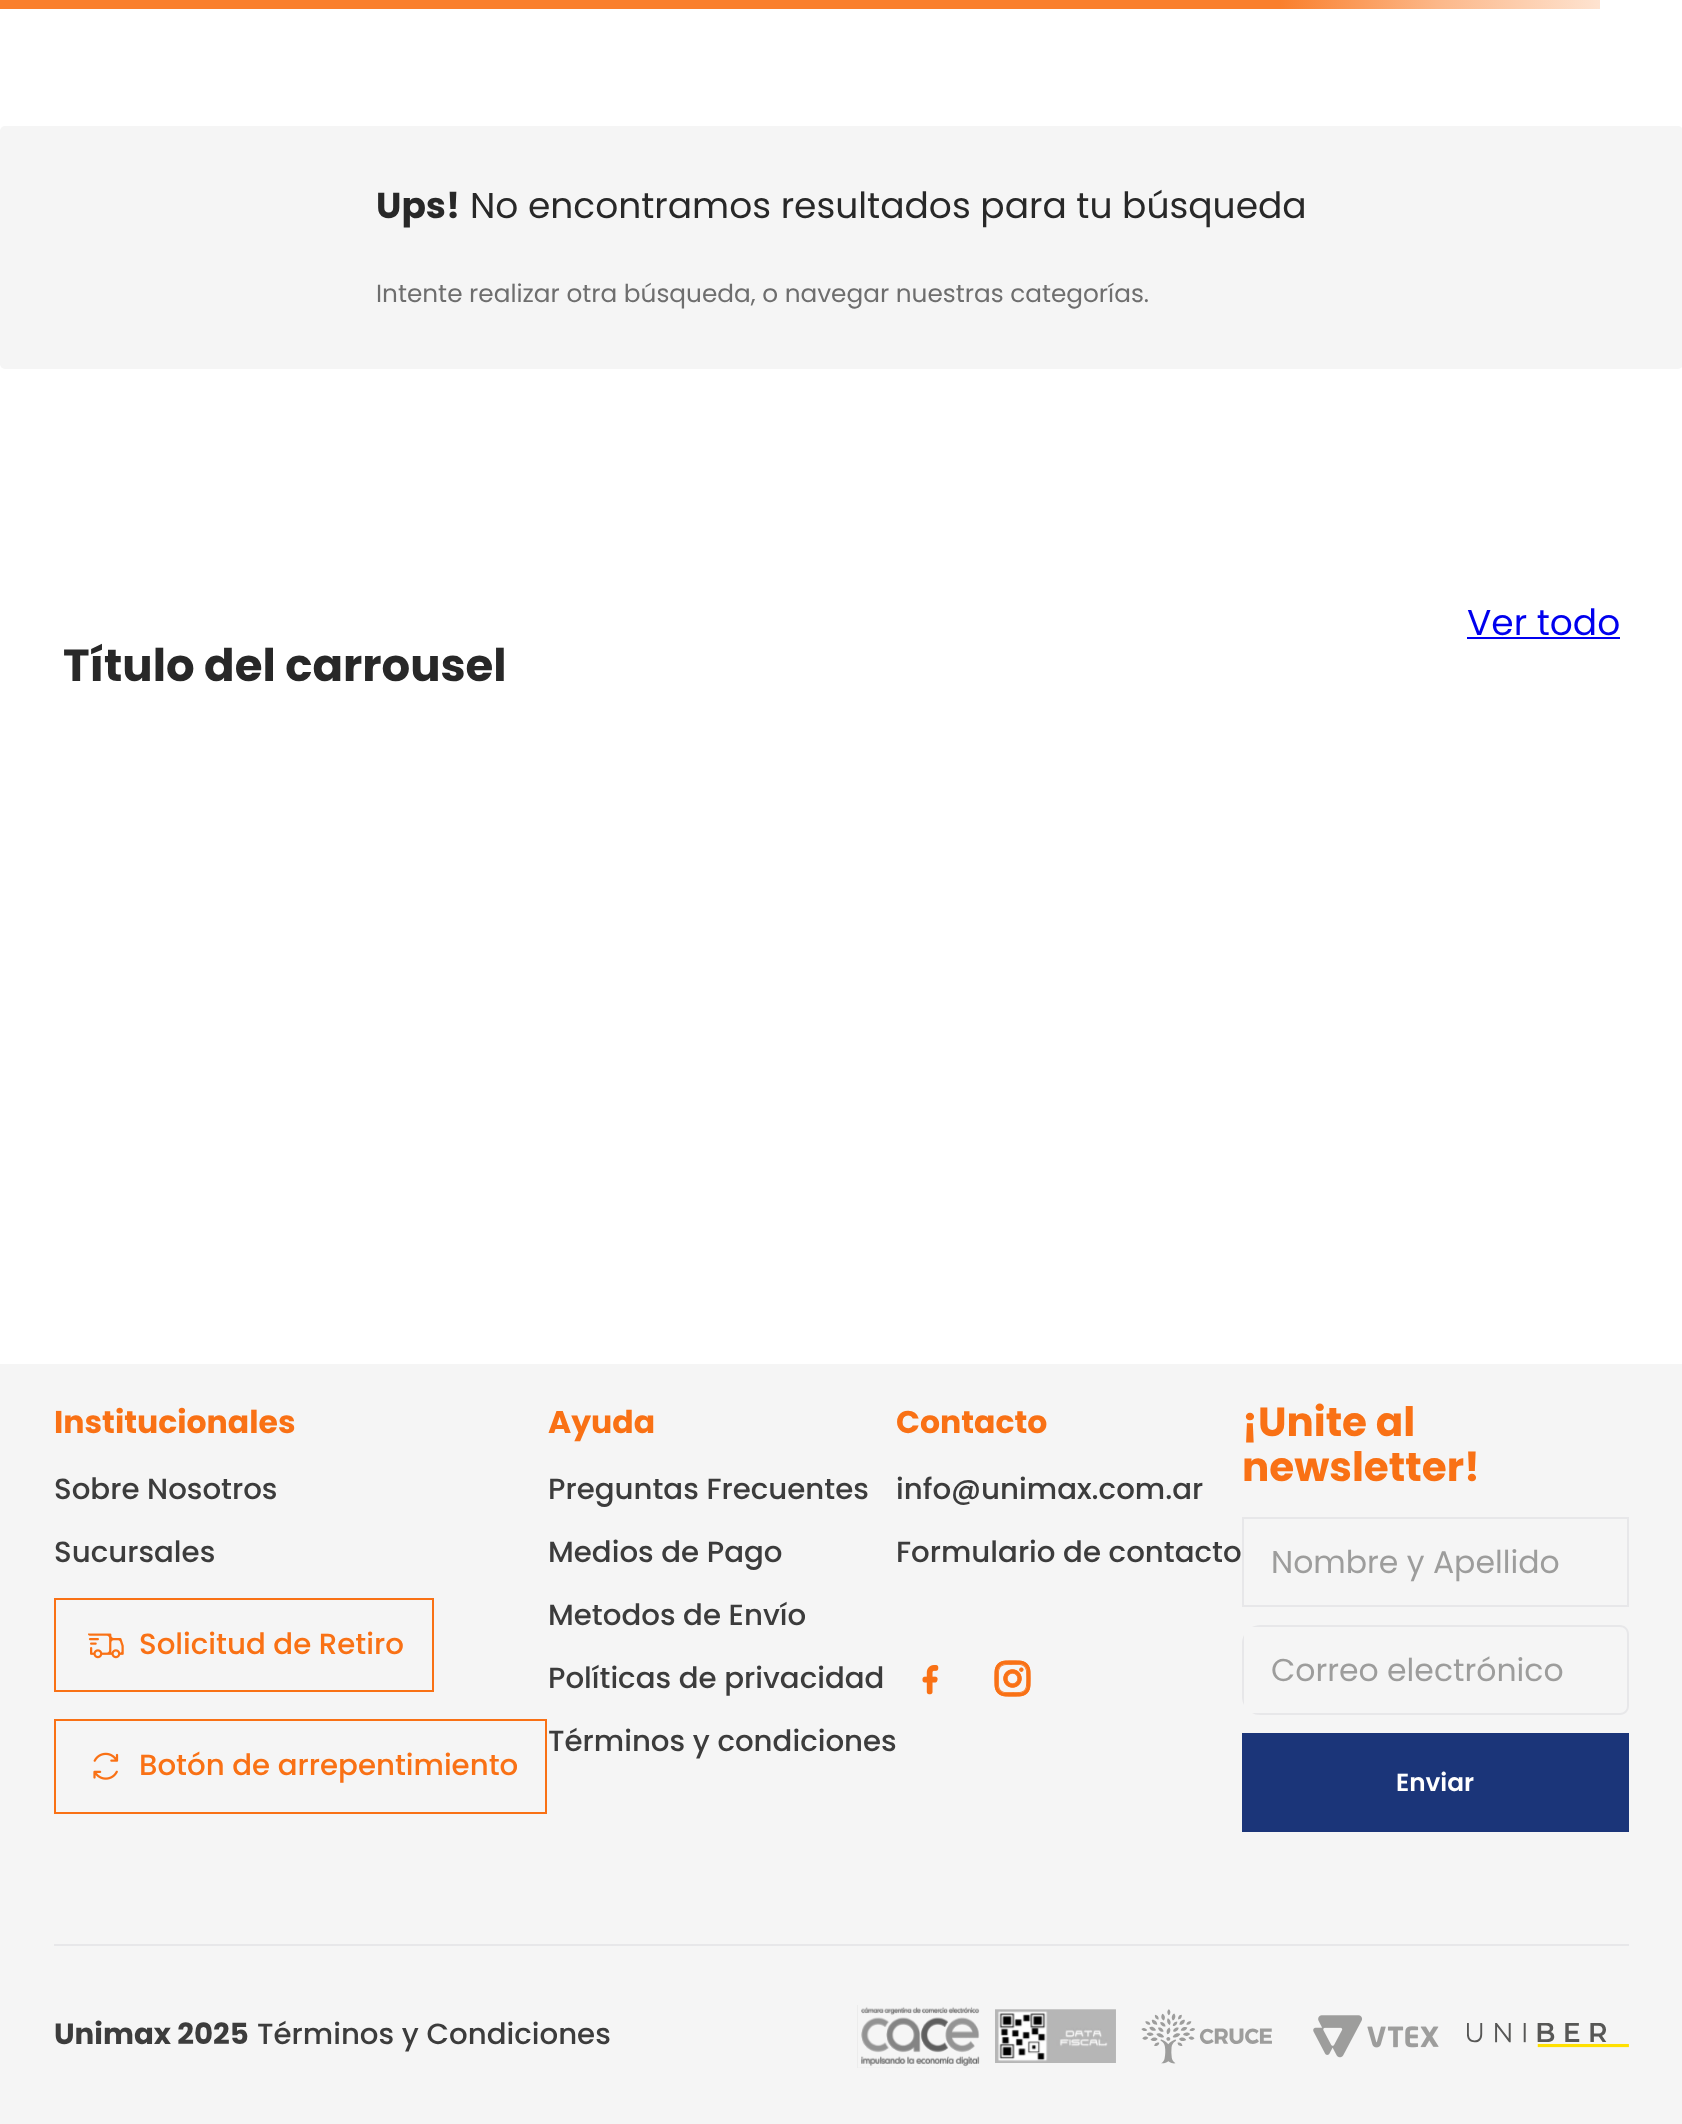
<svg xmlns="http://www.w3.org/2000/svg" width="1682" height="2124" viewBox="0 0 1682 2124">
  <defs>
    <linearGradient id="g1" gradientUnits="userSpaceOnUse" x1="0" y1="4.5" x2="1599" y2="4.5"><stop offset="0.8" stop-color="#fa7f2c"/><stop offset="0.9" stop-color="#fcb88a"/><stop offset="1" stop-color="#fee3d0"/></linearGradient>
  </defs>
  <rect width="100%" height="100%" fill="#fff"/>
  <path d="M0 0h1600v9H0z" fill="url(#g1)"/>
  <rect y="126" width="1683" height="243" rx="5" fill="#f5f5f5"/>
  <path d="M1467 637h153v2H1467z" fill="#00e"/>
  <path d="M0 1364h1682v760H0z" fill="#f5f5f5"/>
  <path d="M55 1599h378v92H55z" fill="none" stroke="#f97115" stroke-width="2"/>
  <image x="88" y="1633" width="36" height="26" href="img/1.png"/>
  <path d="M55 1720h491v93H55z" fill="none" stroke="#f97115" stroke-width="2"/>
  <image x="93" y="1752" width="26" height="28" href="img/2.png"/>
  <image x="922" y="1665" width="17" height="30" href="img/3.png"/>
  <image x="994" y="1660" width="37" height="37" href="img/4.png"/>
  <path d="M1243 1518h385v88H1243z" fill="none" stroke="#e7e7e9" stroke-width="2"/>
  <path d="M1242 1643V1697C1242 1700 1243 1703 1244 1705V1635C1243 1637 1242 1640 1242 1643ZM1260 1625C1257 1625 1254 1626 1252 1627H1620C1624 1627 1627 1630 1627 1634V1706C1627 1710 1624 1713 1620 1713H1252C1254 1714 1257 1715 1260 1715H1620C1625 1715 1629 1711 1629 1706V1634C1629 1629 1625 1625 1620 1625Z" fill="#e7e7e9" fill-rule="evenodd"/>
  <path d="M1242 1733h387v99H1242z" fill="#1b3579"/>
  <path d="M54 1944h1575v2H54z" fill="#e7e7e9"/>
  <image x="857" y="2005" width="123" height="63" href="img/5.png"/>
  <image x="995" y="2009" width="121" height="54" href="img/6.png"/>
  <image x="1141" y="2009" width="131" height="55" href="img/7.png"/>
  <image x="1313" y="2015" width="126" height="43" href="img/8.png"/>
  <image x="1467" y="2023" width="162" height="25" href="img/9.png"/>
  <text x="376" y="218" font-family="Poppins" font-size="36" font-weight="bold" fill="#282828">Ups!</text>
  <text x="470" y="218" font-family="Poppins" font-size="36" fill="#282828">No encontramos resultados para tu búsqueda</text>
  <text x="376" y="302" font-family="Poppins" font-size="24.75" fill="#6e6e6e">Intente realizar otra búsqueda, o navegar nuestras categorías.</text>
  <text x="1467" y="635" font-family="Poppins" font-size="36" fill="#00e">Ver todo</text>
  <text x="63" y="681" font-family="Poppins" font-size="45" font-weight="bold" fill="#282828">Título del carrousel</text>
  <text x="54" y="1433" font-family="Poppins" font-size="31.5" font-weight="bold" fill="#f97115">Institucionales</text>
  <g font-family="Poppins" font-size="29.25" font-weight="500" fill="#3c3c3c">
    <text x="54" y="1499">Sobre Nosotros</text>
    <text x="54" y="1562">Sucursales</text>
  </g>
  <g font-family="Poppins" font-size="29.25" font-weight="500" fill="#f97115">
    <text x="139" y="1654">Solicitud de Retiro</text>
    <text x="139" y="1775">Botón de arrepentimiento</text>
  </g>
  <text x="548" y="1433" font-family="Poppins" font-size="31.5" font-weight="bold" fill="#f97115">Ayuda</text>
  <g font-family="Poppins" font-size="29.25" font-weight="500" fill="#3c3c3c">
    <text x="548" y="1499">Preguntas Frecuentes</text>
    <text x="548" y="1562">Medios de Pago</text>
    <text x="548" y="1625">Metodos de Envío</text>
    <text x="548" y="1688">Políticas de privacidad</text>
    <text x="548" y="1751">Términos y condiciones</text>
  </g>
  <text x="896" y="1433" font-family="Poppins" font-size="31.5" font-weight="bold" fill="#f97115">Contacto</text>
  <g font-family="Poppins" font-size="29.25" font-weight="500" fill="#3c3c3c">
    <text x="896" y="1499">info@unimax.com.ar</text>
    <text x="896" y="1562">Formulario de contacto</text>
  </g>
  <g font-family="Poppins" font-size="40.5" font-weight="bold" fill="#f97115">
    <text x="1242" y="1436">¡Unite al</text>
    <text x="1242" y="1481">newsletter!</text>
  </g>
  <g font-family="Poppins" font-size="31.5" fill="#9d9d9c">
    <text x="1271" y="1573">Nombre y Apellido</text>
    <text x="1271" y="1681">Correo electrónico</text>
  </g>
  <text x="1396" y="1791" font-family="Poppins" font-size="24.75" font-weight="600" fill="#fff">Enviar</text>
  <text x="54" y="2044" font-family="Poppins" font-size="29.25" font-weight="bold" fill="#3c3c3c">Unimax 2025</text>
  <text x="257" y="2044" font-family="Poppins" font-size="29.25" font-weight="500" fill="#3c3c3c">Términos y Condiciones</text>
</svg>
